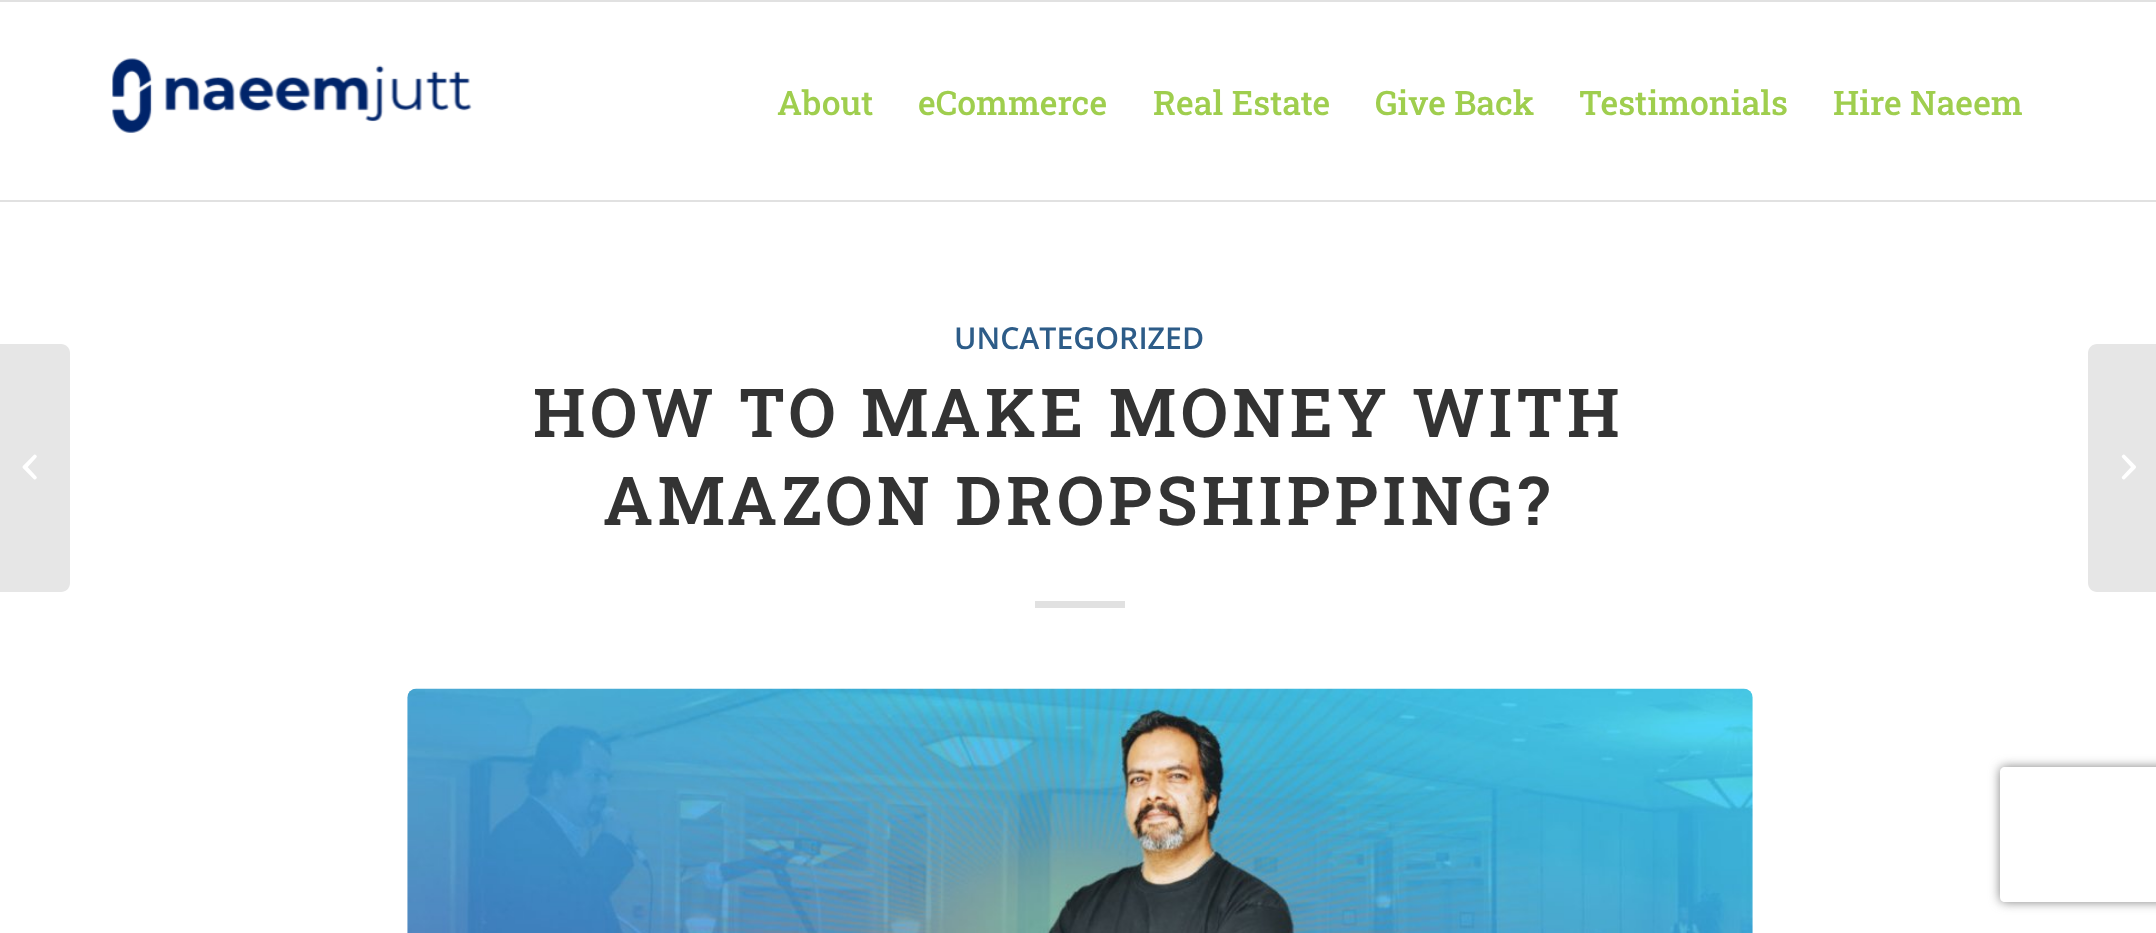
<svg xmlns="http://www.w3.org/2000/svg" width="2156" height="933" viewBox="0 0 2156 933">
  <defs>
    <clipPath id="clip1"><path d="M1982 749H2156V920H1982ZM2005 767H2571C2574 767 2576 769 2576 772V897C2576 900 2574 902 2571 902H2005C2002 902 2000 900 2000 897V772C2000 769 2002 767 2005 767Z" clip-rule="evenodd"/></clipPath>
  </defs>
  <rect width="100%" height="100%" fill="#fff"/>
  <path d="M0 0h2156v2H0z" fill="#e1e1e1"/>
  <path d="M0 200h2156v2H0z" fill="#e1e1e1"/>
  <image x="112" y="58" width="360" height="75" href="img/1.png"/>
  <path d="M0 344H61C66 344 70 348 70 353V583C70 588 66 592 61 592H0Z" fill="#e6e6e6"/>
  <image x="22" y="454" width="15" height="26" href="img/2.png"/>
  <path d="M1035 601h90v7H1035z" fill="#e1e1e1"/>
  <image x="407" y="688" width="1346" height="245" href="img/3.png"/>
  <path d="M2097 344H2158V592H2097C2092 592 2088 588 2088 583V353C2088 348 2092 344 2097 344Z" fill="#e6e6e6"/>
  <image x="2121" y="454" width="15" height="26" href="img/4.png"/>
  <g clip-path="url(#clip1)">
    <rect x="2000" y="767" width="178" height="135" rx="5" fill="#808080" filter="blur(5.5px)"/>
  </g>
  <g font-family="Roboto Slab" font-size="33.75" font-weight="500" fill="#9fce4e">
    <text x="777" y="115">About</text>
    <text x="918" y="115">eCommerce</text>
    <text x="1153" y="115">Real Estate</text>
    <text x="1375" y="115">Give Back</text>
    <text x="1579" y="115">Testimonials</text>
    <text x="1833" y="115">Hire Naeem</text>
  </g>
  <text x="954" y="349" font-family="Open Sans" font-size="30.25" font-weight="600" fill="#2d5c88">UNCATEGORIZED</text>
  <g font-family="Roboto Slab" font-size="67.5" font-weight="600" letter-spacing="4.5" fill="#333">
    <text x="533" y="437">HOW TO MAKE MONEY WITH</text>
    <text x="603" y="525">AMAZON DROPSHIPPING?</text>
  </g>
</svg>
